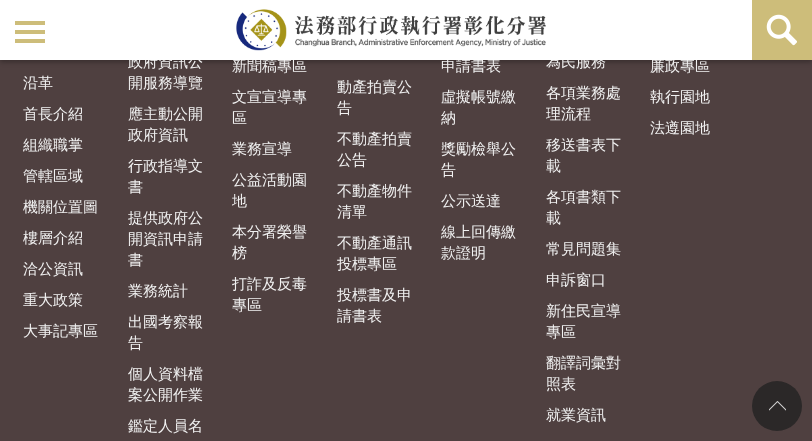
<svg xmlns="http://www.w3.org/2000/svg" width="812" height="441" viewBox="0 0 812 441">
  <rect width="100%" height="100%" fill="#4f4040"/>
  <path d="M0 2h812v60H0z" fill="#0000004d" filter="blur(2.5px)"/>
  <path d="M752 0h60v60H752z" fill="#cdbd7a"/>
  <image x="766" y="14" width="31" height="32" href="img/2.png"/>
  <circle cx="777" cy="406" r="25" fill="#2b2828"/>
  <image x="769" y="401" width="17" height="10" href="img/3.png"/>
  <g font-family="WenQuanYi Zen Hei" font-size="15" font-weight="500" fill="#f1f1f1">
    <text x="23" y="88">沿革</text>
    <text x="23" y="119">首長介紹</text>
    <text x="23" y="150">組織職掌</text>
    <text x="23" y="181">管轄區域</text>
    <text x="23" y="212">機關位置圖</text>
    <text x="23" y="243">樓層介紹</text>
    <text x="23" y="274">洽公資訊</text>
    <text x="23" y="305">重大政策</text>
    <text x="23" y="336">大事記專區</text>
    <text x="128" y="67">政府資訊公</text>
    <text x="128" y="88">開服務導覽</text>
    <text x="128" y="119">應主動公開</text>
    <text x="128" y="140">政府資訊</text>
    <text x="128" y="171">行政指導文</text>
    <text x="128" y="192">書</text>
    <text x="128" y="223">提供政府公</text>
    <text x="128" y="244">開資訊申請</text>
    <text x="128" y="265">書</text>
    <text x="128" y="296">業務統計</text>
    <text x="128" y="327">出國考察報</text>
    <text x="128" y="348">告</text>
    <text x="128" y="379">個人資料檔</text>
    <text x="128" y="400">案公開作業</text>
    <text x="128" y="431">鑑定人員名</text>
    <text x="232" y="71">新聞稿專區</text>
    <text x="232" y="102">文宣宣導專</text>
    <text x="232" y="123">區</text>
    <text x="232" y="154">業務宣導</text>
    <text x="232" y="185">公益活動園</text>
    <text x="232" y="206">地</text>
    <text x="232" y="237">本分署榮譽</text>
    <text x="232" y="258">榜</text>
    <text x="232" y="289">打詐及反毒</text>
    <text x="232" y="310">專區</text>
    <text x="337" y="92">動產拍賣公</text>
    <text x="337" y="113">告</text>
    <text x="337" y="144">不動產拍賣</text>
    <text x="337" y="165">公告</text>
    <text x="337" y="196">不動產物件</text>
    <text x="337" y="217">清單</text>
    <text x="337" y="248">不動產通訊</text>
    <text x="337" y="269">投標專區</text>
    <text x="337" y="300">投標書及申</text>
    <text x="337" y="321">請書表</text>
    <text x="441" y="71">申請書表</text>
    <text x="441" y="102">虛擬帳號繳</text>
    <text x="441" y="123">納</text>
    <text x="441" y="154">獎勵檢舉公</text>
    <text x="441" y="175">告</text>
    <text x="441" y="206">公示送達</text>
    <text x="441" y="237">線上回傳繳</text>
    <text x="441" y="258">款證明</text>
    <text x="546" y="67">為民服務</text>
    <text x="546" y="98">各項業務處</text>
    <text x="546" y="119">理流程</text>
    <text x="546" y="150">移送書表下</text>
    <text x="546" y="171">載</text>
    <text x="546" y="202">各項書類下</text>
    <text x="546" y="223">載</text>
    <text x="546" y="254">常見問題集</text>
    <text x="546" y="285">申訴窗口</text>
    <text x="546" y="316">新住民宣導</text>
    <text x="546" y="337">專區</text>
    <text x="546" y="368">翻譯詞彙對</text>
    <text x="546" y="389">照表</text>
    <text x="546" y="420">就業資訊</text>
    <text x="650" y="71">廉政專區</text>
  </g>
  <path d="M0 0h752v60H0z" fill="#fff"/>
  <path d="M15 39h30v4H15z" fill="#cdbd7a"/>
  <path d="M15 30h30v4H15z" fill="#cdbd7a"/>
  <path d="M15 21h30v4H15z" fill="#cdbd7a"/>
  <image x="236" y="9" width="310" height="42" href="img/1.png"/>
  <g font-family="WenQuanYi Zen Hei" font-size="15" font-weight="500" fill="#f1f1f1">
    <text x="650" y="102">執行園地</text>
    <text x="650" y="133">法遵園地</text>
  </g>
</svg>
